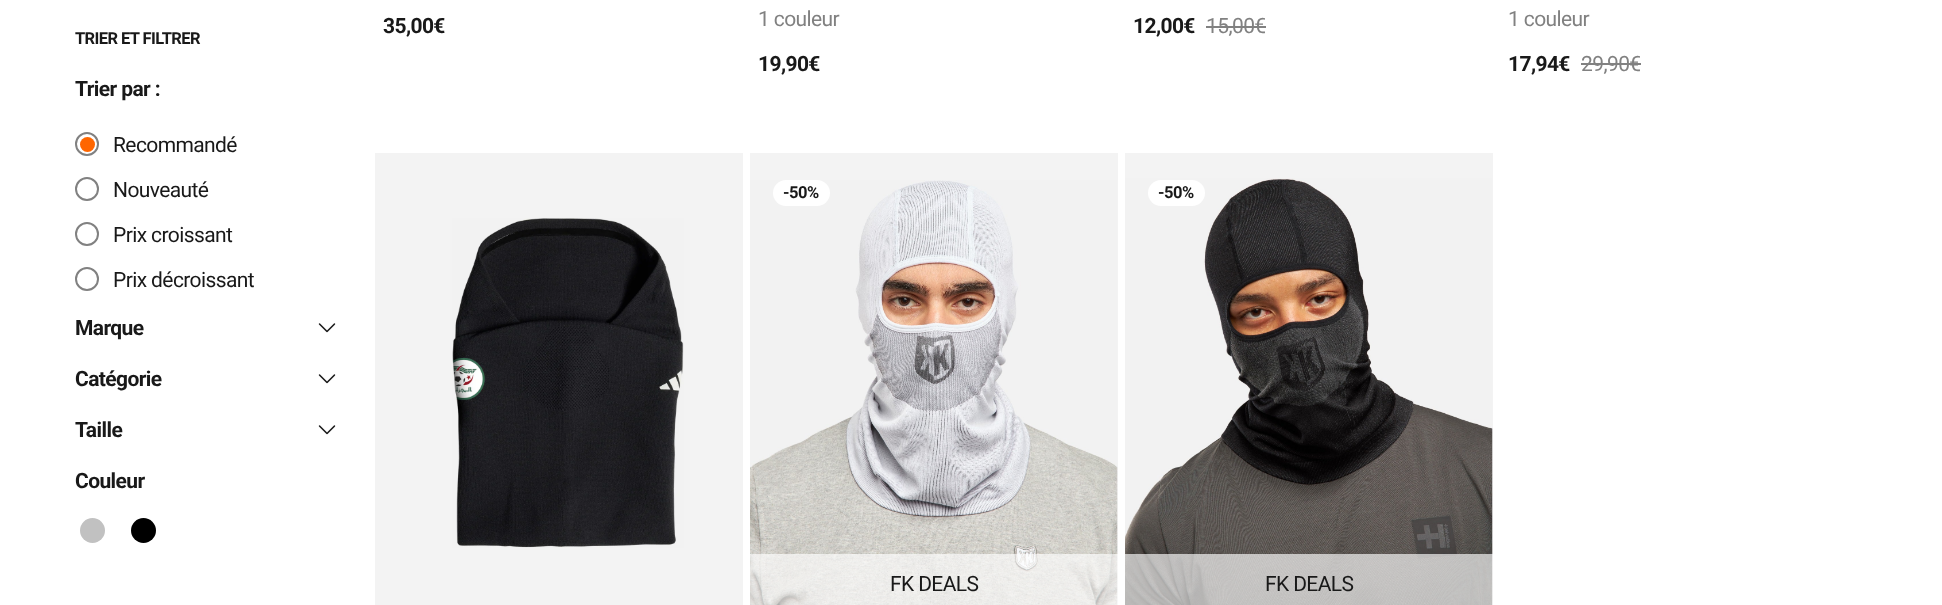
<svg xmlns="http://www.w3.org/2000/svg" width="1942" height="605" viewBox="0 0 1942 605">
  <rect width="100%" height="100%" fill="#fff"/>
  <circle cx="87" cy="144" r="11" fill="none" stroke="#818181" stroke-width="2"/>
  <circle cx="87.5" cy="144.5" r="7.5" fill="#f60"/>
  <circle cx="87" cy="189" r="11" fill="none" stroke="#818181" stroke-width="2"/>
  <circle cx="87" cy="234" r="11" fill="none" stroke="#818181" stroke-width="2"/>
  <circle cx="87" cy="279" r="11" fill="none" stroke="#818181" stroke-width="2"/>
  <image x="318" y="323" width="18" height="10" href="img/1.png"/>
  <image x="318" y="374" width="18" height="10" href="img/1.png"/>
  <image x="318" y="425" width="18" height="10" href="img/1.png"/>
  <circle cx="92.5" cy="530.5" r="12.5" fill="#c1c1c1"/>
  <circle cx="143.5" cy="530.5" r="12.5" fill="#000"/>
  <path d="M1206 26h60v2H1206z" fill="#818181"/>
  <path d="M1581 63h60v2H1581z" fill="#818181"/>
  <path d="M375 153h368v452H375z" fill="#f3f3f3"/>
  <image x="452" y="218" width="232" height="330" href="img/2.png"/>
  <path d="M750 153h368v452H750z" fill="#f3f3f3"/>
  <image x="750" y="180" width="368" height="425" href="img/3.png"/>
  <rect x="773" y="180" width="57" height="26" rx="13" fill="#fff"/>
  <path d="M750 554h368v51H750z" fill="#ffffffa6"/>
  <path d="M1125 153h368v452H1125z" fill="#f3f3f3"/>
  <image x="1125" y="178" width="368" height="427" href="img/4.png"/>
  <rect x="1148" y="180" width="57" height="26" rx="13" fill="#fff"/>
  <path d="M1125 554h368v51H1125z" fill="#ffffffa6"/>
  <text x="75" y="44" font-family="Roboto" font-size="16.5" font-weight="bold" letter-spacing="-0.6" fill="#191919">TRIER ET FILTRER</text>
  <text x="75" y="96" font-family="Roboto" font-size="21" font-weight="bold" letter-spacing="-0.6" fill="#191919">Trier par :</text>
  <g font-family="Roboto" font-size="21" letter-spacing="-0.6" fill="#191919">
    <text x="113" y="152">Recommandé</text>
    <text x="113" y="197">Nouveauté</text>
    <text x="113" y="242">Prix croissant</text>
    <text x="113" y="287">Prix décroissant</text>
  </g>
  <g font-family="Roboto" font-size="21" font-weight="bold" letter-spacing="-0.6" fill="#191919">
    <text x="75" y="335">Marque</text>
    <text x="75" y="386">Catégorie</text>
    <text x="75" y="437">Taille</text>
    <text x="75" y="488">Couleur</text>
    <text x="383" y="33">35,00€</text>
  </g>
  <text x="758" y="26" font-family="Roboto" font-size="21" letter-spacing="-0.6" fill="#818181">1 couleur</text>
  <g font-family="Roboto" font-size="21" font-weight="bold" letter-spacing="-0.6" fill="#191919">
    <text x="758" y="71">19,90€</text>
    <text x="1133" y="33">12,00€</text>
  </g>
  <g font-family="Roboto" font-size="21" letter-spacing="-0.6" fill="#818181">
    <text x="1206" y="33">15,00€</text>
    <text x="1508" y="26">1 couleur</text>
  </g>
  <text x="1508" y="71" font-family="Roboto" font-size="21" font-weight="bold" letter-spacing="-0.6" fill="#191919">17,94€</text>
  <text x="1581" y="71" font-family="Roboto" font-size="21" letter-spacing="-0.6" fill="#818181">29,90€</text>
  <text x="783" y="198" font-family="Roboto" font-size="16.5" font-weight="bold" letter-spacing="-0.5" fill="#191919">-50%</text>
  <text x="890" y="591" font-family="Roboto" font-size="21" letter-spacing="-0.6" fill="#191919">FK DEALS</text>
  <text x="1158" y="198" font-family="Roboto" font-size="16.5" font-weight="bold" letter-spacing="-0.5" fill="#191919">-50%</text>
  <text x="1265" y="591" font-family="Roboto" font-size="21" letter-spacing="-0.6" fill="#191919">FK DEALS</text>
</svg>
